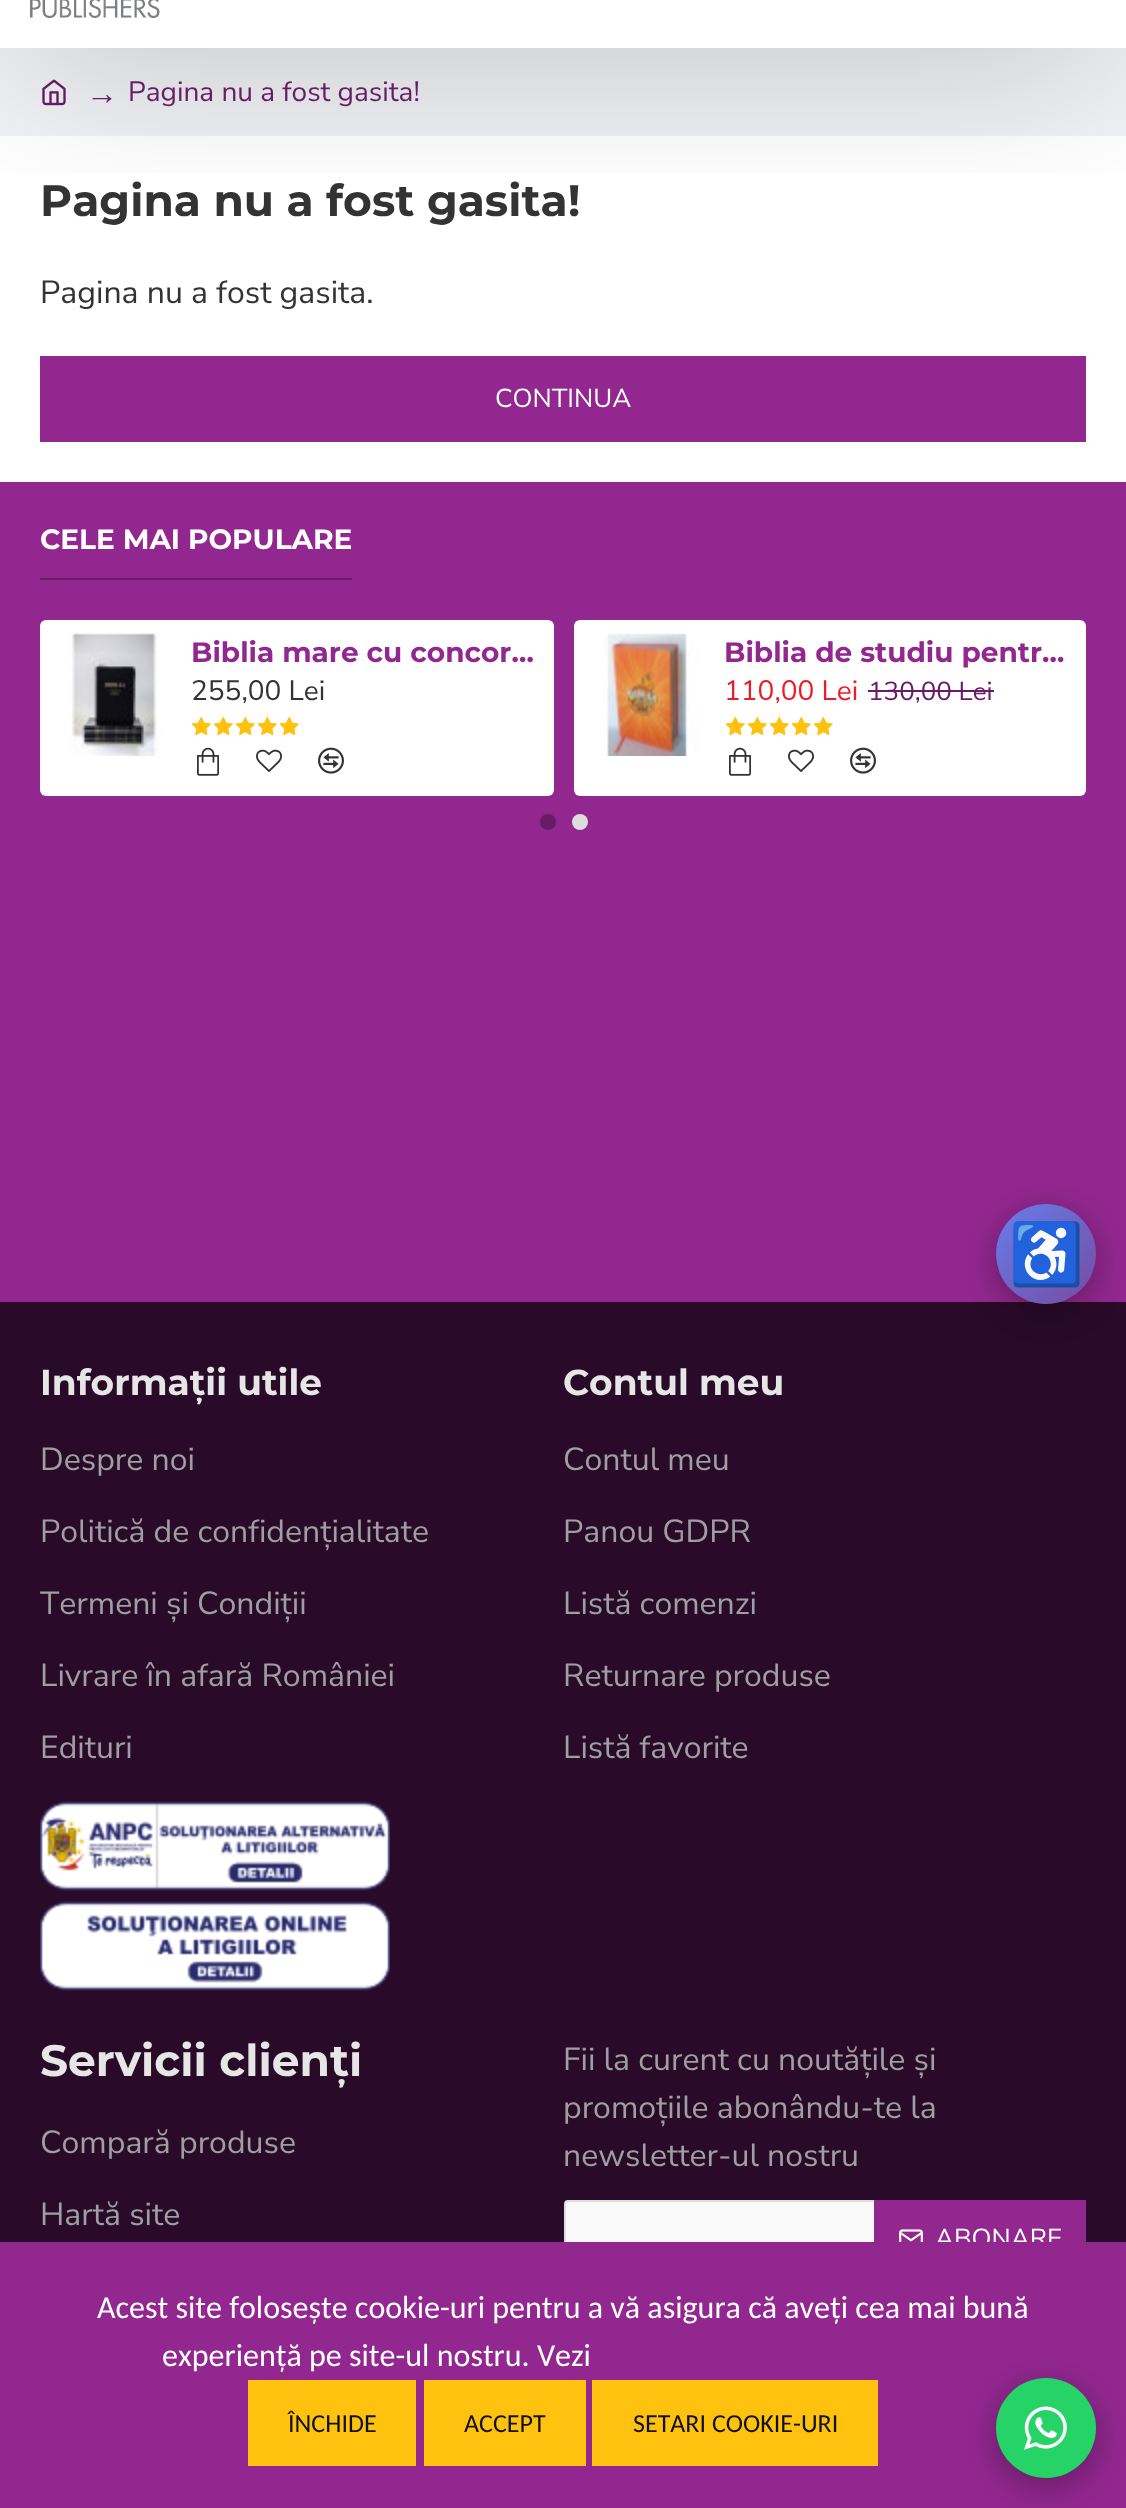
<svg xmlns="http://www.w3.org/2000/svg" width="1126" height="2508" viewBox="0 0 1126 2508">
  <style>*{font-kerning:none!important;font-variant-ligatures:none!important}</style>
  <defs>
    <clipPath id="clip1"><path d="M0 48h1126v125H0z"/></clipPath>
    <linearGradient id="g1" gradientUnits="userSpaceOnUse" x1="996" y1="1204" x2="1096" y2="1304"><stop offset="0" stop-color="#667eea"/><stop offset="1" stop-color="#764ba2"/></linearGradient>
  </defs>
  <rect width="100%" height="100%" fill="#fff"/>
  <path d="M0 48h1126v88H0z" fill="#f0f2f5"/>
  <image x="42" y="79" width="24" height="27" href="img/2.png"/>
  <g clip-path="url(#clip1)">
    <path d="M20 -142h1086v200H20z" fill="#00000033" filter="blur(90px)"/>
  </g>
  <image x="30" y="0" width="130" height="18" href="img/1.png"/>
  <path d="M40 356h1046v86H40z" fill="#91278f"/>
  <path d="M0 1302h1126v940H0z" fill="#2a0a29"/>
  <path d="M0 482h1126v820H0z" fill="#91278f"/>
  <path d="M40 578h312v2H40z" fill="#681c67"/>
  <rect x="40" y="620" width="514" height="176" rx="6" fill="#fff"/>
  <image x="71" y="633" width="90" height="123" href="img/3.png"/>
  <image x="192" y="717" width="19" height="18" href="img/4.png"/>
  <image x="192" y="717" width="19" height="18" href="img/5.png"/>
  <image x="214" y="717" width="19" height="18" href="img/4.png"/>
  <image x="214" y="717" width="19" height="18" href="img/5.png"/>
  <image x="236" y="717" width="19" height="18" href="img/4.png"/>
  <image x="236" y="717" width="19" height="18" href="img/5.png"/>
  <image x="258" y="717" width="19" height="18" href="img/4.png"/>
  <image x="258" y="717" width="19" height="18" href="img/5.png"/>
  <image x="280" y="717" width="19" height="18" href="img/4.png"/>
  <image x="280" y="717" width="19" height="18" href="img/5.png"/>
  <image x="197" y="747" width="22" height="29" href="img/6.png"/>
  <image x="256" y="749" width="26" height="23" href="img/7.png"/>
  <image x="318" y="747" width="26" height="27" href="img/8.png"/>
  <rect x="574" y="620" width="512" height="176" rx="6" fill="#fff"/>
  <image x="604" y="633" width="94" height="123" href="img/9.png"/>
  <path d="M868 690h126v2H868z" fill="#681c67"/>
  <image x="726" y="717" width="19" height="18" href="img/4.png"/>
  <image x="726" y="717" width="19" height="18" href="img/5.png"/>
  <image x="748" y="717" width="19" height="18" href="img/4.png"/>
  <image x="748" y="717" width="19" height="18" href="img/5.png"/>
  <image x="770" y="717" width="19" height="18" href="img/4.png"/>
  <image x="770" y="717" width="19" height="18" href="img/5.png"/>
  <image x="792" y="717" width="19" height="18" href="img/4.png"/>
  <image x="792" y="717" width="19" height="18" href="img/5.png"/>
  <image x="814" y="717" width="19" height="18" href="img/4.png"/>
  <image x="814" y="717" width="19" height="18" href="img/5.png"/>
  <image x="729" y="747" width="22" height="29" href="img/6.png"/>
  <image x="788" y="749" width="26" height="23" href="img/7.png"/>
  <image x="850" y="747" width="26" height="27" href="img/8.png"/>
  <circle cx="548" cy="822" r="8" fill="#681c67"/>
  <circle cx="580" cy="822" r="8" fill="#ddd"/>
  <image x="40" y="1801" width="350" height="90" href="img/10.png"/>
  <image x="40" y="1901" width="350" height="90" href="img/11.png"/>
  <rect x="565" y="2201" width="520" height="78" rx="3" fill="#fafafa" stroke="#ddd" stroke-width="2"/>
  <path d="M874 2200h212v42H874z" fill="#91278f"/>
  <image x="899" y="2229" width="24" height="13" href="img/12.png"/>
  <rect x="996" y="1212" width="100" height="100" rx="50" fill="#0000004d" filter="blur(15px)"/>
  <circle cx="1046" cy="1254" r="50" fill="url(#g1)"/>
  <text x="86" y="104" font-family="Liberation Serif" font-size="32" fill="#681c67">→</text>
  <text x="128" y="101" font-family="Nunito Sans" font-size="28" fill="#681c67">Pagina nu a fost gasita!</text>
  <text x="40" y="216" font-family="Montserrat" font-size="44" font-weight="bold" fill="#333">Pagina nu a fost gasita!</text>
  <text x="40" y="303" font-family="Nunito Sans" font-size="32" fill="#333">Pagina nu a fost gasita.</text>
  <text x="495" y="407" font-family="Nunito Sans" font-size="26" fill="#fff">CONTINUA</text>
  <text x="40" y="549" font-family="Montserrat" font-size="28" font-weight="bold" fill="#fff">CELE MAI POPULARE</text>
  <text x="191" y="662" font-family="Montserrat" font-size="28" font-weight="bold" fill="#91278f">Biblia mare cu concor…</text>
  <text x="191" y="700" font-family="Nunito Sans" font-size="28" fill="#333">255,00 Lei</text>
  <text x="724" y="662" font-family="Montserrat" font-size="28" font-weight="bold" fill="#91278f">Biblia de studiu pentr…</text>
  <text x="724" y="700" font-family="Nunito Sans" font-size="28" fill="#ed1c24">110,00 Lei</text>
  <text x="868" y="700" font-family="Nunito Sans" font-size="26" fill="#681c67">130,00 Lei</text>
  <text x="40" y="1395" font-family="Montserrat" font-size="36" font-weight="bold" fill="#e6e6e6">Informații utile</text>
  <g font-family="Nunito Sans" font-size="32" fill="#9d9fa2">
    <text x="40" y="1470">Despre noi</text>
    <text x="40" y="1542">Politică de confidențialitate</text>
    <text x="40" y="1614">Termeni și Condiții</text>
    <text x="40" y="1686">Livrare în afară României</text>
    <text x="40" y="1758">Edituri</text>
  </g>
  <text x="563" y="1395" font-family="Montserrat" font-size="36" font-weight="bold" fill="#e6e6e6">Contul meu</text>
  <g font-family="Nunito Sans" font-size="32" fill="#9d9fa2">
    <text x="563" y="1470">Contul meu</text>
    <text x="563" y="1542">Panou GDPR</text>
    <text x="563" y="1614">Listă comenzi</text>
    <text x="563" y="1686">Returnare produse</text>
    <text x="563" y="1758">Listă favorite</text>
  </g>
  <text x="40" y="2076" font-family="Montserrat" font-size="44" font-weight="bold" fill="#e6e6e6">Servicii clienți</text>
  <g font-family="Nunito Sans" font-size="32" fill="#9d9fa2">
    <text x="40" y="2153">Compară produse</text>
    <text x="40" y="2225">Hartă site</text>
    <text x="563" y="2070">Fii la curent cu noutățile și</text>
    <text x="563" y="2118">promoțiile abonându-te la</text>
    <text x="563" y="2166">newsletter-ul nostru</text>
  </g>
  <text x="935" y="2247" font-family="Nunito Sans" font-size="26" fill="#fff">ABONARE</text>
  <path d="M0 2242h1126v266H0z" fill="#91278f"/>
  <g font-family="Carlito" font-size="32" fill="#fff">
    <text x="97" y="2318">Acest site folosește cookie-uri pentru a vă asigura că aveți cea mai bună</text>
    <text x="162" y="2366">experiență pe site-ul nostru. Vezi</text>
  </g>
  <path d="M248 2380h168v86H248z" fill="#ffc20e"/>
  <text x="288" y="2432" font-family="Carlito" font-size="26" fill="#111">ÎNCHIDE</text>
  <path d="M424 2380h162v86H424z" fill="#ffc20e"/>
  <text x="464" y="2432" font-family="Carlito" font-size="26" fill="#111">ACCEPT</text>
  <path d="M592 2380h286v86H592z" fill="#ffc20e"/>
  <text x="633" y="2432" font-family="Carlito" font-size="26" fill="#111">SETARI COOKIE-URI</text>
  <text x="1009" y="1275" font-family="Noto Color Emoji" font-size="60" fill="#fff">♿</text>
  <rect x="996" y="2386" width="100" height="100" rx="50" fill="#0000004d" filter="blur(15px)"/>
  <circle cx="1046" cy="2428" r="50" fill="#25d366"/>
  <image x="1024" y="2406" width="43" height="44" href="img/13.png"/>
</svg>
